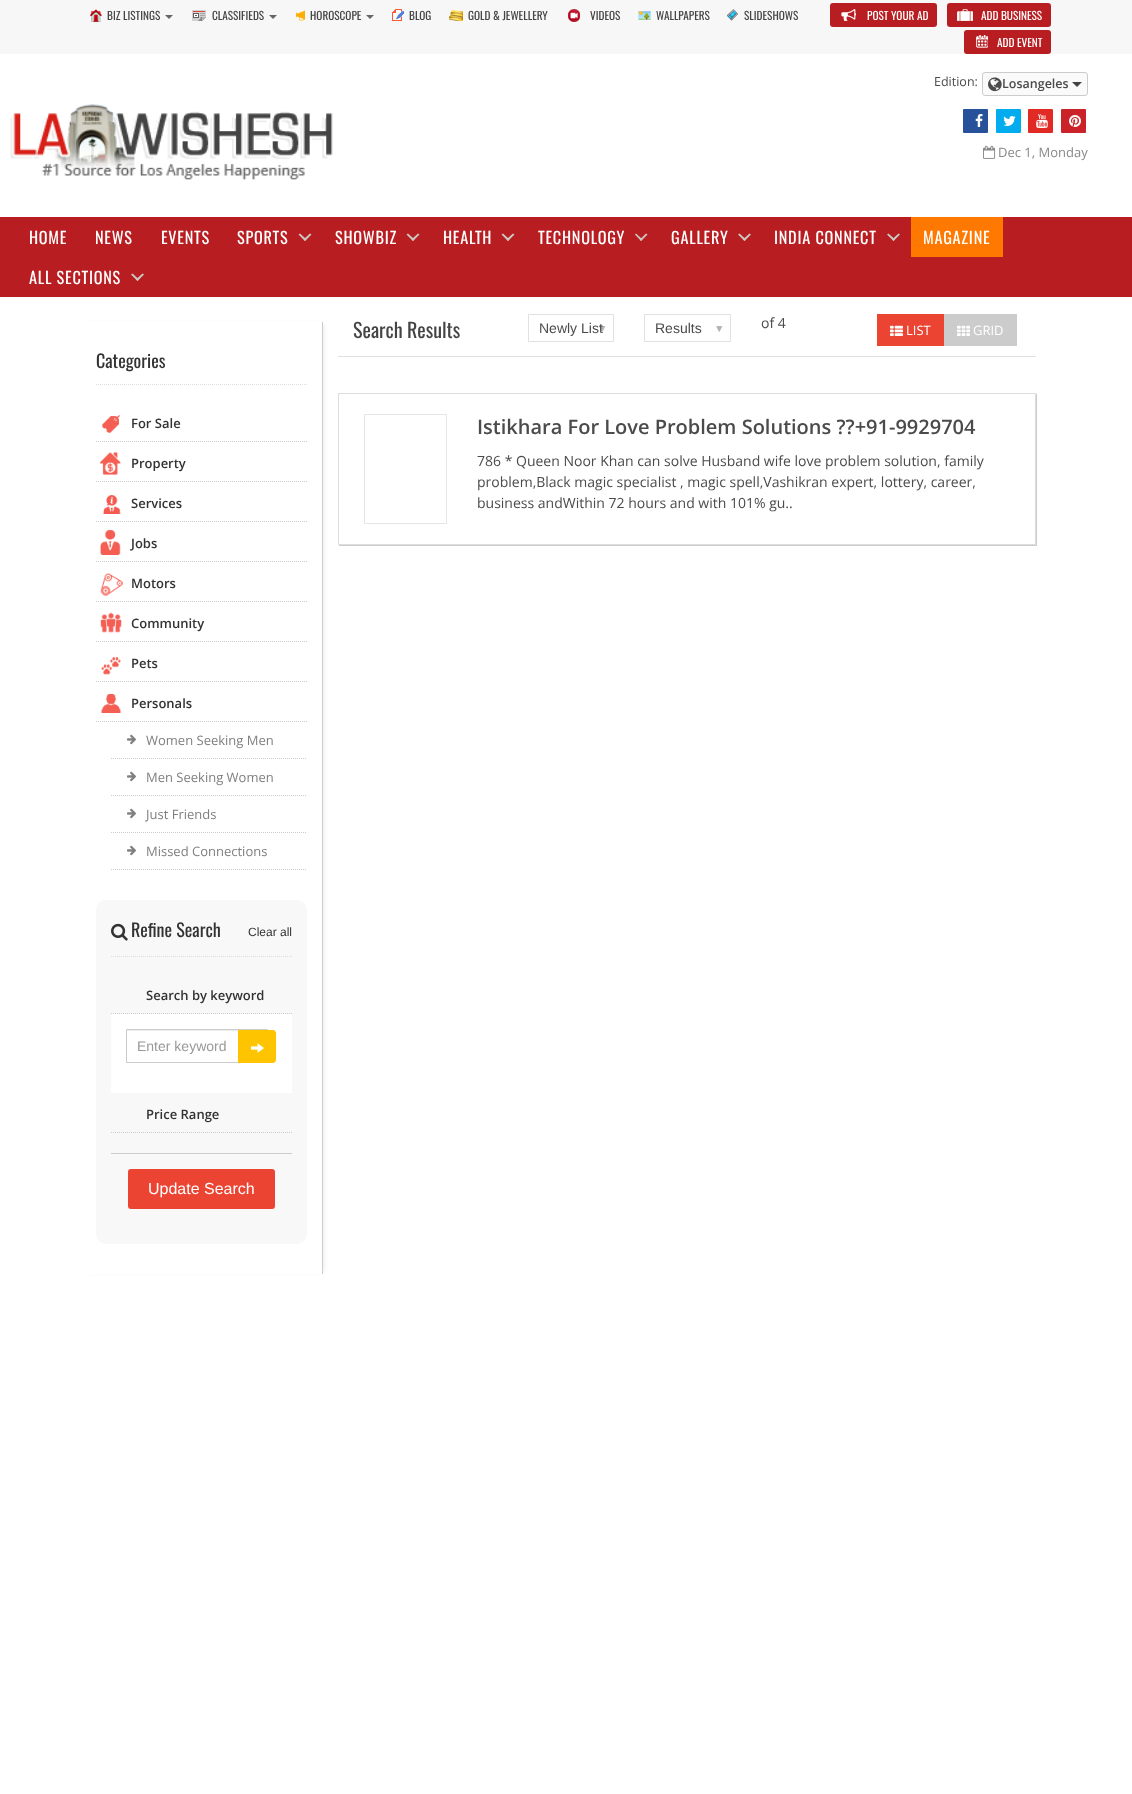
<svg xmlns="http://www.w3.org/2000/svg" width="1132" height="1794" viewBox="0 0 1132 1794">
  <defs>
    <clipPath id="clip1"><path d="M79 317H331V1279H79ZM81 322H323V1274H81Z" clip-rule="evenodd"/></clipPath>
    <clipPath id="clip2"><path d="M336 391H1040V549H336ZM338 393H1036V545H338Z" clip-rule="evenodd"/></clipPath>
  </defs>
  <rect width="100%" height="100%" fill="#fff"/>
  <path d="M0 0h1132v54H0z" fill="#f7f7f7"/>
  <image x="90" y="9" width="12" height="13" href="img/1.png"/>
  <path d="M165 15H173L169 19Z" fill="#666"/>
  <image x="192" y="10" width="14" height="11" href="img/2.png"/>
  <path d="M269 15H277L273 19Z" fill="#666"/>
  <image x="296" y="10" width="9" height="11" href="img/3.png"/>
  <path d="M366 15H374L370 19Z" fill="#666"/>
  <image x="392" y="9" width="12" height="12" href="img/4.png"/>
  <image x="449" y="10" width="14" height="11" href="img/5.png"/>
  <image x="568" y="9" width="12" height="13" href="img/6.png"/>
  <image x="638" y="11" width="13" height="9" href="img/7.png"/>
  <image x="727" y="9" width="11" height="12" href="img/8.png"/>
  <rect x="830" y="3" width="107" height="24" rx="3" fill="#b81d21"/>
  <image x="841" y="9" width="15" height="12" href="img/9.png"/>
  <rect x="947" y="3" width="104" height="24" rx="3" fill="#b81d21"/>
  <image x="957" y="9" width="16" height="12" href="img/10.png"/>
  <rect x="964" y="30" width="87" height="24" rx="3" fill="#b81d21"/>
  <image x="976" y="35" width="12" height="13" href="img/11.png"/>
  <rect x="982.5" y="72.5" width="105" height="23" rx="2.5" fill="#fafafa" stroke="#ccc"/>
  <image x="988" y="77" width="14" height="15" href="img/12.png"/>
  <path d="M1072 82H1082L1077 87Z" fill="#444"/>
  <image x="10" y="104" width="323" height="76" href="img/13.png"/>
  <rect x="963" y="109" width="25" height="24" rx="1" fill="#275199"/>
  <image x="975" y="114" width="8" height="13" href="img/14.png"/>
  <rect x="996" y="109" width="25" height="24" rx="1" fill="#00aced"/>
  <image x="1003" y="116" width="13" height="10" href="img/15.png"/>
  <rect x="1028" y="109" width="25" height="24" rx="1" fill="#e12a24"/>
  <image x="1036" y="114" width="12" height="14" href="img/16.png"/>
  <rect x="1061" y="109" width="25" height="24" rx="1" fill="#cb2128"/>
  <image x="1069" y="115" width="12" height="12" href="img/17.png"/>
  <image x="983" y="145" width="13" height="14" href="img/18.png"/>
  <path d="M0 217h1132v80H0z" fill="#b81d21"/>
  <path d="M300 233.5L306.5 239.5L305 241L298.5 234.5Z" fill="#c9cbc4"/>
  <path d="M303.5 239.5L310 233.5L311.5 234.5L305 241Z" fill="#c9cbc4"/>
  <path d="M408 233.5L414.5 239.5L413 241L406.5 234.5Z" fill="#c9cbc4"/>
  <path d="M411.5 239.5L418 233.5L419.5 234.5L413 241Z" fill="#c9cbc4"/>
  <path d="M503 233.5L509.5 239.5L508 241L501.5 234.5Z" fill="#c9cbc4"/>
  <path d="M506.5 239.5L513 233.5L514.5 234.5L508 241Z" fill="#c9cbc4"/>
  <path d="M636 233.5L642.5 239.5L641 241L635 234.5Z" fill="#c9cbc4"/>
  <path d="M640 239.5L646 233.5L647.5 234.5L641 241Z" fill="#c9cbc4"/>
  <path d="M739.5 233.5L746 239.5L744.5 241L738 234.5Z" fill="#c9cbc4"/>
  <path d="M743 239.5L749.5 233.5L751 234.5L744.5 241Z" fill="#c9cbc4"/>
  <path d="M888.5 233.5L895 239.5L893.5 241L887 234.5Z" fill="#c9cbc4"/>
  <path d="M892 239.5L898.5 233.5L900 234.5L893.5 241Z" fill="#c9cbc4"/>
  <path d="M911 217h92v40H911z" fill="#ff7800"/>
  <path d="M132.5 273.5L139 279.5L137.5 281L131 274.5Z" fill="#c9cbc4"/>
  <path d="M136 279.5L142.5 273.5L144 274.5L137.5 281Z" fill="#c9cbc4"/>
  <g clip-path="url(#clip1)">
    <path d="M86 324h238v948H86z" fill="#ececec" filter="blur(2px)"/>
  </g>
  <path d="M322 322h1v952H322z" fill="#ccc"/>
  <path d="M96 384.5H307" fill="none" stroke="#ddd" stroke-dasharray="1 1"/>
  <path d="M96 441.5H307" fill="none" stroke="#ccc" stroke-dasharray="1 1"/>
  <image x="102" y="415" width="18" height="18" href="img/19.png"/>
  <path d="M96 481.5H307" fill="none" stroke="#ccc" stroke-dasharray="1 1"/>
  <image x="100" y="452" width="21" height="23" href="img/20.png"/>
  <path d="M96 521.5H307" fill="none" stroke="#ccc" stroke-dasharray="1 1"/>
  <image x="103" y="495" width="18" height="19" href="img/21.png"/>
  <path d="M96 561.5H307" fill="none" stroke="#ccc" stroke-dasharray="1 1"/>
  <image x="100" y="530" width="21" height="25" href="img/22.png"/>
  <path d="M96 601.5H307" fill="none" stroke="#ccc" stroke-dasharray="1 1"/>
  <image x="100" y="573" width="23" height="23" href="img/23.png"/>
  <path d="M96 641.5H307" fill="none" stroke="#ccc" stroke-dasharray="1 1"/>
  <image x="100" y="612" width="22" height="21" href="img/24.png"/>
  <path d="M96 681.5H307" fill="none" stroke="#ccc" stroke-dasharray="1 1"/>
  <image x="101" y="657" width="20" height="18" href="img/25.png"/>
  <path d="M96 721.5H307" fill="none" stroke="#ccc" stroke-dasharray="1 1"/>
  <image x="101" y="694" width="20" height="19" href="img/26.png"/>
  <path d="M111 758.5H307" fill="none" stroke="#ccc" stroke-dasharray="1 1"/>
  <image x="127" y="734" width="9" height="11" href="img/27.png"/>
  <path d="M111 795.5H307" fill="none" stroke="#ccc" stroke-dasharray="1 1"/>
  <image x="127" y="771" width="9" height="11" href="img/27.png"/>
  <path d="M111 832.5H307" fill="none" stroke="#ccc" stroke-dasharray="1 1"/>
  <image x="127" y="808" width="9" height="11" href="img/27.png"/>
  <path d="M111 869.5H307" fill="none" stroke="#ccc" stroke-dasharray="1 1"/>
  <image x="127" y="845" width="9" height="11" href="img/27.png"/>
  <rect x="96" y="900" width="211" height="344" rx="10" fill="#f8f8f8"/>
  <path d="M111 956.5H292" fill="none" stroke="#ddd" stroke-dasharray="1 1"/>
  <image x="111" y="923" width="17" height="18" href="img/28.png"/>
  <path d="M111 1013.5H292" fill="none" stroke="#ccc" stroke-dasharray="1 1"/>
  <path d="M111 1014h181v79H111z" fill="#fff"/>
  <path d="M127 1030h111v1H127z" fill="#ececec"/>
  <path d="M126.5 1029.5h141v33H126.5z" fill="none" stroke="#ccc"/>
  <path d="M238 1030H273C274.5 1030 276 1031.5 276 1033V1060C276 1061.5 274.5 1063 273 1063H238Z" fill="#ffc400"/>
  <image x="251" y="1043" width="13" height="10" href="img/29.png"/>
  <path d="M111 1132.5H292" fill="none" stroke="#ccc" stroke-dasharray="1 1"/>
  <path d="M111 1153h181v1H111z" fill="#ccc"/>
  <rect x="128" y="1169" width="147" height="40" rx="3" fill="#eb4432"/>
  <path d="M338 356h698v1H338z" fill="#e1e1e1"/>
  <image x="599" y="326" width="7" height="6" href="img/30.png"/>
  <path d="M528.5 314.5h85v27H528.5z" fill="none" stroke="#e1e1e1"/>
  <image x="716" y="326" width="7" height="6" href="img/30.png"/>
  <path d="M644.5 314.5h86v27H644.5z" fill="none" stroke="#e1e1e1"/>
  <path d="M877 314h67v32H877z" fill="#eb4432"/>
  <image x="890" y="325" width="13" height="11" href="img/31.png"/>
  <path d="M944 314h73v32H944z" fill="#ccc"/>
  <image x="957" y="325" width="13" height="11" href="img/32.png"/>
  <g clip-path="url(#clip2)">
    <path d="M339 394h698v152H339z" fill="#ccc" filter="blur(0.5px)"/>
  </g>
  <path d="M338.5 393.5h697v151H338.5z" fill="none" stroke="#ddd"/>
  <path d="M364.5 414.5h82v109H364.5z" fill="none" stroke="#e6e6e6"/>
  <g font-family="Oswald" font-size="11.25" fill="#444">
    <text x="107" y="20">BIZ LISTINGS</text>
    <text x="212" y="20">CLASSIFIEDS</text>
    <text x="310" y="20">HOROSCOPE</text>
    <text x="409" y="20">BLOG</text>
    <text x="468" y="20">GOLD &amp; JEWELLERY</text>
    <text x="590" y="20">VIDEOS</text>
    <text x="656" y="20">WALLPAPERS</text>
    <text x="744" y="20">SLIDESHOWS</text>
  </g>
  <g font-family="Oswald" font-size="11.25" fill="#fff">
    <text x="867" y="20">POST YOUR AD</text>
    <text x="981" y="20">ADD BUSINESS</text>
    <text x="997" y="47">ADD EVENT</text>
  </g>
  <text x="934" y="86" font-family="Open Sans" font-size="12.5" fill="#4b4b4b">Edition:</text>
  <text x="1002" y="88" font-family="Open Sans" font-size="12.5" font-weight="600" fill="#4b4b4b">Losangeles</text>
  <text x="998" y="157" font-family="Open Sans" font-size="13" fill="#888">Dec 1, Monday</text>
  <g font-family="Oswald" font-size="16.25" letter-spacing="0.75" fill="#fff">
    <text x="29" y="244">HOME</text>
    <text x="95" y="244">NEWS</text>
    <text x="161" y="244">EVENTS</text>
    <text x="237" y="244">SPORTS</text>
    <text x="335" y="244">SHOWBIZ</text>
    <text x="443" y="244">HEALTH</text>
    <text x="538" y="244">TECHNOLOGY</text>
    <text x="671" y="244">GALLERY</text>
    <text x="774" y="244">INDIA CONNECT</text>
    <text x="923" y="244">MAGAZINE</text>
    <text x="29" y="284">ALL SECTIONS</text>
  </g>
  <text x="96" y="368" font-family="Oswald" font-size="18" fill="#333">Categories</text>
  <g font-family="Open Sans" font-size="13" font-weight="600" fill="#333">
    <text x="131" y="428">For Sale</text>
    <text x="131" y="468">Property</text>
    <text x="131" y="508">Services</text>
    <text x="131" y="548">Jobs</text>
    <text x="131" y="588">Motors</text>
    <text x="131" y="628">Community</text>
    <text x="131" y="668">Pets</text>
    <text x="131" y="708">Personals</text>
  </g>
  <g font-family="Open Sans" font-size="13" fill="#7f7f7f">
    <text x="146" y="745">Women Seeking Men</text>
    <text x="146" y="782">Men Seeking Women</text>
    <text x="146" y="819">Just Friends</text>
    <text x="146" y="856">Missed Connections</text>
  </g>
  <text x="131" y="937" font-family="Oswald" font-size="18" fill="#333">Refine Search</text>
  <text x="248" y="936" font-family="Liberation Sans" font-size="12" fill="#333">Clear all</text>
  <text x="146" y="1000" font-family="Open Sans" font-size="13" font-weight="600" fill="#333">Search by keyword</text>
  <text x="137" y="1051" font-family="Liberation Sans" font-size="14" fill="#999">Enter keyword</text>
  <text x="146" y="1119" font-family="Open Sans" font-size="13" font-weight="600" fill="#333">Price Range</text>
  <text x="148" y="1194" font-family="Liberation Sans" font-size="16" fill="#fff">Update Search</text>
  <text x="353" y="338" font-family="Oswald" font-size="20" fill="#444">Search Results</text>
  <g font-family="Liberation Sans" font-size="14" fill="#4b4b4b">
    <text x="539" y="333">Newly List</text>
    <text x="655" y="333">Results</text>
  </g>
  <text x="761" y="328" font-family="Open Sans" font-size="14" fill="#4b4b4b">of 4</text>
  <g font-family="Open Sans" font-size="13" fill="#fff">
    <text x="906" y="335">LIST</text>
    <text x="973" y="335">GRID</text>
  </g>
  <text x="477" y="434" font-family="Open Sans" font-size="20" font-weight="600" fill="#4b4b4b">Istikhara For Love Problem Solutions ??+91-9929704</text>
  <g font-family="Open Sans" font-size="14" fill="#4b4b4b">
    <text x="477" y="466">786 * Queen Noor Khan can solve Husband wife love problem solution, family</text>
    <text x="477" y="487">problem,Black magic specialist , magic spell,Vashikran expert, lottery, career,</text>
    <text x="477" y="508">business andWithin 72 hours and with 101% gu..</text>
  </g>
</svg>
